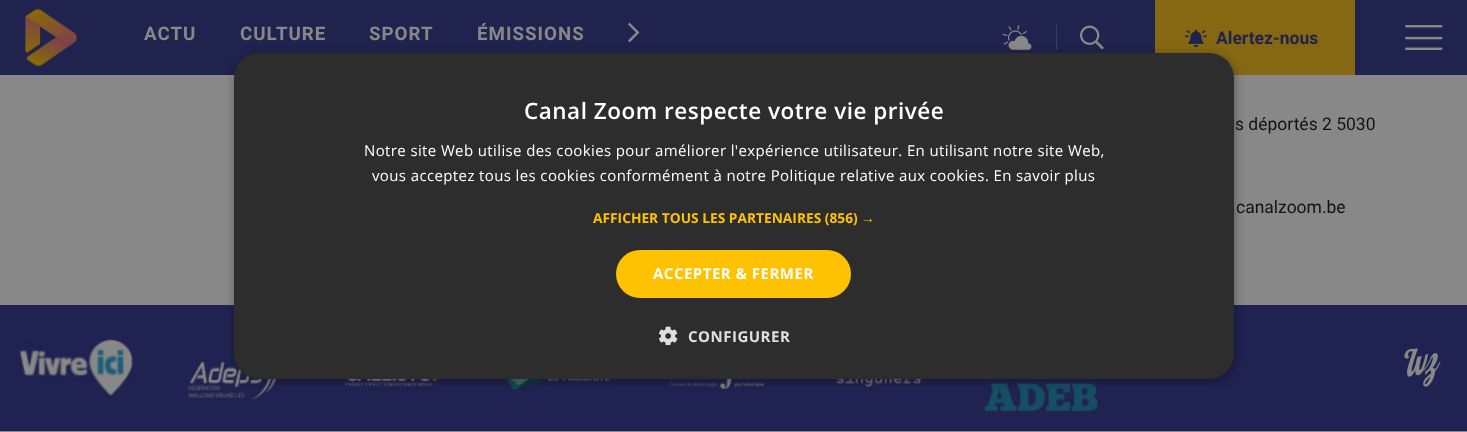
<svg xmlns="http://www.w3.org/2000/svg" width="1467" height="432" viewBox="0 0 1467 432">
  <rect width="100%" height="100%" fill="#888"/>
  <path d="M0 0h1467v75H0z" fill="#20234e"/>
  <image x="25" y="8" width="52" height="59" href="img/1.png"/>
  <path d="M628 40.5L629.5 42.5L639.5 32.5L629.5 22.5L628 24.5L636 32.5Z" fill="#888"/>
  <image x="1002" y="25" width="30" height="25" href="img/2.png"/>
  <path d="M1056 25h1v25H1056z" fill="#3a3d5d"/>
  <image x="1080" y="25" width="24" height="25" href="img/3.png"/>
  <path d="M1155 0h200v75H1155z" fill="#866812"/>
  <image x="1185" y="29" width="22" height="19" href="img/4.png"/>
  <image x="1405" y="25" width="38" height="25" href="img/5.png"/>
  <path d="M0 305h1467v126H0z" fill="#202251"/>
  <image x="20" y="338" width="113" height="59" href="img/6.png"/>
  <image x="187" y="361" width="90" height="39" href="img/7.png"/>
  <image x="345" y="379" width="93" height="8" href="img/8.png"/>
  <image x="505" y="379" width="105" height="11" href="img/9.png"/>
  <image x="670" y="379" width="94" height="10" href="img/10.png"/>
  <image x="836" y="379" width="86" height="8" href="img/11.png"/>
  <image x="985" y="382" width="113" height="30" href="img/12.png"/>
  <image x="1404" y="348" width="37" height="39" href="img/13.png"/>
  <rect x="235" y="55" width="1000" height="326" rx="25" fill="#00000059" filter="blur(5px)"/>
  <rect x="234" y="53" width="1000" height="326" rx="25" fill="#2d2d2d"/>
  <rect x="616" y="250" width="235" height="48" rx="24" fill="#ffc200"/>
  <image x="659" y="326" width="19" height="19" href="img/14.png"/>
  <g font-family="Roboto" font-size="18.75" font-weight="bold" letter-spacing="1" fill="#888">
    <text x="144" y="40">ACTU</text>
    <text x="240" y="40">CULTURE</text>
    <text x="369" y="40">SPORT</text>
    <text x="477" y="40">ÉMISSIONS</text>
  </g>
  <text x="1216" y="44" font-family="Roboto" font-size="17.5" font-weight="bold" fill="#20234e">Alertez-nous</text>
  <g font-family="Roboto" font-size="17.5" fill="#121314">
    <text x="1235" y="130">s déportés 2 5030</text>
    <text x="1236" y="213">canalzoom.be</text>
  </g>
  <text x="524" y="119" font-family="Open Sans" font-size="22.5" font-weight="600" letter-spacing="0.5" fill="#fff">Canal Zoom respecte votre vie privée</text>
  <g font-family="Open Sans" font-size="15" letter-spacing="0.38" fill="#fff">
    <text x="364" y="156">Notre site Web utilise des cookies pour améliorer l'expérience utilisateur. En utilisant notre site Web,</text>
    <text x="372" y="181">vous acceptez tous les cookies conformément à notre Politique relative aux cookies. En savoir plus</text>
  </g>
  <text x="593" y="223" font-family="Open Sans" font-size="13.75" font-weight="bold" fill="#ffc200">AFFICHER TOUS LES PARTENAIRES (856)</text>
  <text x="861" y="223" font-family="Liberation Sans" font-size="13.75" font-weight="bold" fill="#ffc200">→</text>
  <text x="653" y="279" font-family="Open Sans" font-size="15" font-weight="bold" letter-spacing="0.5" fill="#fff">ACCEPTER &amp; FERMER</text>
  <text x="688" y="342" font-family="Open Sans" font-size="15" font-weight="bold" letter-spacing="0.5" fill="#e0e0e0">CONFIGURER</text>
</svg>
